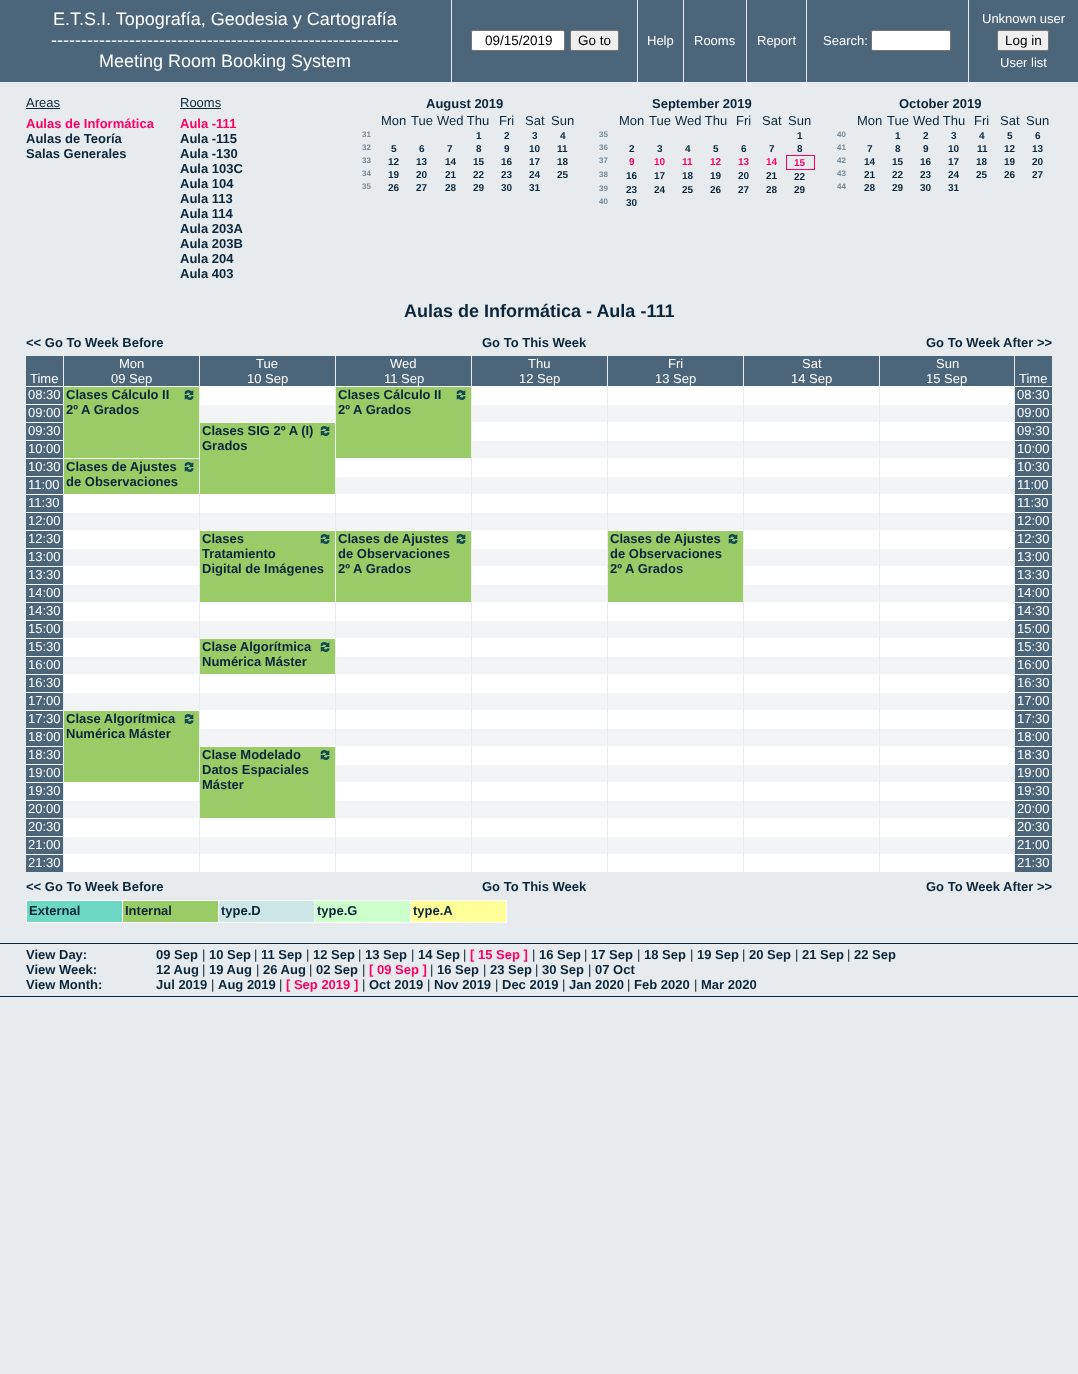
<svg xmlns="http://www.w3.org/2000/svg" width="1078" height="1374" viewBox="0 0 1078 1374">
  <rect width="100%" height="100%" fill="#e7ebee"/>
  <path d="M0 0h1078v82H0z" fill="#4b667b"/>
  <path d="M451 0h1v82H451z" fill="#e7ebee"/>
  <rect x="471.5" y="30.5" width="93" height="20" rx="1.5" fill="#fff" stroke="#767676"/>
  <rect x="570.5" y="30.5" width="48" height="20" rx="1.5" fill="#efefef" stroke="#767676"/>
  <path d="M637 0h1v82H637z" fill="#e7ebee"/>
  <path d="M683 0h1v82H683z" fill="#e7ebee"/>
  <path d="M746 0h1v82H746z" fill="#e7ebee"/>
  <path d="M806 0h1v82H806z" fill="#e7ebee"/>
  <rect x="871.5" y="30.5" width="79" height="20" rx="1.5" fill="#fff" stroke="#767676"/>
  <path d="M968 0h1v82H968z" fill="#e7ebee"/>
  <rect x="997.5" y="30.5" width="51" height="20" rx="1.5" fill="#efefef" stroke="#767676"/>
  <path d="M26 108h34v1H26z" fill="#0b263b"/>
  <path d="M180 108h41v1H180z" fill="#0b263b"/>
  <path d="M786 155h29v1H786z" fill="#f06"/>
  <path d="M814 155h1v15H814z" fill="#f06"/>
  <path d="M786 169h29v1H786z" fill="#f06"/>
  <path d="M786 155h1v15H786z" fill="#f06"/>
  <path d="M26 356h37v30H26z" fill="#4b667b"/>
  <path d="M64 356h135v30H64z" fill="#4b667b"/>
  <path d="M200 356h135v30H200z" fill="#4b667b"/>
  <path d="M336 356h135v30H336z" fill="#4b667b"/>
  <path d="M472 356h135v30H472z" fill="#4b667b"/>
  <path d="M608 356h135v30H608z" fill="#4b667b"/>
  <path d="M744 356h135v30H744z" fill="#4b667b"/>
  <path d="M880 356h134v30H880z" fill="#4b667b"/>
  <path d="M1015 356h37v30H1015z" fill="#4b667b"/>
  <path d="M26 387h37v17H26z" fill="#4b667b"/>
  <path d="M26 386h173v1H26z" fill="#fff"/>
  <path d="M64 387h135v71H64z" fill="#9c6"/>
  <path d="M63 386h1v1H63z" fill="#e7ebee"/>
  <image x="184" y="390" width="10" height="10" href="img/1.png"/>
  <path d="M200 386h135v18H200z" fill="#fff"/>
  <path d="M336 387h135v71H336z" fill="#9c6"/>
  <path d="M335 386h136v1H335z" fill="#fff"/>
  <path d="M335 386h1v1H335z" fill="#e7ebee"/>
  <image x="456" y="390" width="10" height="10" href="img/1.png"/>
  <path d="M472 386h135v18H472z" fill="#fff"/>
  <path d="M608 386h135v18H608z" fill="#fff"/>
  <path d="M744 386h135v18H744z" fill="#fff"/>
  <path d="M880 386h134v18H880z" fill="#fff"/>
  <path d="M1015 387h37v17H1015z" fill="#4b667b"/>
  <path d="M1014 386h38v1H1014z" fill="#fff"/>
  <path d="M1014 386h1v1H1014z" fill="#e7ebee"/>
  <path d="M200 405h135v17H200z" fill="#f2f4f6"/>
  <path d="M199 404h136v1H199z" fill="#fff"/>
  <path d="M199 404h1v1H199z" fill="#e7ebee"/>
  <path d="M472 405h135v17H472z" fill="#f2f4f6"/>
  <path d="M471 404h581v1H471z" fill="#fff"/>
  <path d="M471 404h1v1H471z" fill="#e7ebee"/>
  <path d="M26 405h37v17H26z" fill="#4b667b"/>
  <path d="M26 404h37v1H26z" fill="#fff"/>
  <path d="M608 405h135v17H608z" fill="#f2f4f6"/>
  <path d="M607 404h1v1H607z" fill="#e7ebee"/>
  <path d="M744 405h135v17H744z" fill="#f2f4f6"/>
  <path d="M743 404h1v1H743z" fill="#e7ebee"/>
  <path d="M880 405h134v17H880z" fill="#f2f4f6"/>
  <path d="M879 404h1v1H879z" fill="#e7ebee"/>
  <path d="M1015 405h37v17H1015z" fill="#4b667b"/>
  <path d="M1014 404h1v1H1014z" fill="#e7ebee"/>
  <path d="M26 423h37v17H26z" fill="#4b667b"/>
  <path d="M26 422h37v1H26z" fill="#fff"/>
  <path d="M200 423h135v71H200z" fill="#9c6"/>
  <path d="M199 422h136v1H199z" fill="#fff"/>
  <path d="M199 422h1v1H199z" fill="#e7ebee"/>
  <image x="320" y="426" width="10" height="10" href="img/1.png"/>
  <path d="M472 422h135v18H472z" fill="#fff"/>
  <path d="M608 422h135v18H608z" fill="#fff"/>
  <path d="M744 422h135v18H744z" fill="#fff"/>
  <path d="M880 422h134v18H880z" fill="#fff"/>
  <path d="M1015 423h37v17H1015z" fill="#4b667b"/>
  <path d="M1014 422h38v1H1014z" fill="#fff"/>
  <path d="M1014 422h1v1H1014z" fill="#e7ebee"/>
  <path d="M472 441h135v17H472z" fill="#f2f4f6"/>
  <path d="M471 440h581v1H471z" fill="#fff"/>
  <path d="M471 440h1v1H471z" fill="#e7ebee"/>
  <path d="M26 441h37v17H26z" fill="#4b667b"/>
  <path d="M26 440h37v1H26z" fill="#fff"/>
  <path d="M608 441h135v17H608z" fill="#f2f4f6"/>
  <path d="M607 440h1v1H607z" fill="#e7ebee"/>
  <path d="M744 441h135v17H744z" fill="#f2f4f6"/>
  <path d="M743 440h1v1H743z" fill="#e7ebee"/>
  <path d="M880 441h134v17H880z" fill="#f2f4f6"/>
  <path d="M879 440h1v1H879z" fill="#e7ebee"/>
  <path d="M1015 441h37v17H1015z" fill="#4b667b"/>
  <path d="M1014 440h1v1H1014z" fill="#e7ebee"/>
  <path d="M26 459h37v17H26z" fill="#4b667b"/>
  <path d="M26 458h173v1H26z" fill="#fff"/>
  <path d="M64 459h135v35H64z" fill="#9c6"/>
  <path d="M63 458h1v1H63z" fill="#e7ebee"/>
  <image x="184" y="462" width="10" height="10" href="img/1.png"/>
  <path d="M336 458h135v18H336z" fill="#fff"/>
  <path d="M472 458h135v18H472z" fill="#fff"/>
  <path d="M608 458h135v18H608z" fill="#fff"/>
  <path d="M744 458h135v18H744z" fill="#fff"/>
  <path d="M880 458h134v18H880z" fill="#fff"/>
  <path d="M1015 459h37v17H1015z" fill="#4b667b"/>
  <path d="M1014 458h38v1H1014z" fill="#fff"/>
  <path d="M1014 458h1v1H1014z" fill="#e7ebee"/>
  <path d="M336 477h135v17H336z" fill="#f2f4f6"/>
  <path d="M335 476h717v1H335z" fill="#fff"/>
  <path d="M335 476h1v1H335z" fill="#e7ebee"/>
  <path d="M26 477h37v17H26z" fill="#4b667b"/>
  <path d="M26 476h37v1H26z" fill="#fff"/>
  <path d="M472 477h135v17H472z" fill="#f2f4f6"/>
  <path d="M471 476h1v1H471z" fill="#e7ebee"/>
  <path d="M608 477h135v17H608z" fill="#f2f4f6"/>
  <path d="M607 476h1v1H607z" fill="#e7ebee"/>
  <path d="M744 477h135v17H744z" fill="#f2f4f6"/>
  <path d="M743 476h1v1H743z" fill="#e7ebee"/>
  <path d="M880 477h134v17H880z" fill="#f2f4f6"/>
  <path d="M879 476h1v1H879z" fill="#e7ebee"/>
  <path d="M1015 477h37v17H1015z" fill="#4b667b"/>
  <path d="M1014 476h1v1H1014z" fill="#e7ebee"/>
  <path d="M26 495h37v17H26z" fill="#4b667b"/>
  <path d="M26 494h37v1H26z" fill="#fff"/>
  <path d="M64 494h135v18H64z" fill="#fff"/>
  <path d="M200 494h135v18H200z" fill="#fff"/>
  <path d="M336 494h135v18H336z" fill="#fff"/>
  <path d="M472 494h135v18H472z" fill="#fff"/>
  <path d="M608 494h135v18H608z" fill="#fff"/>
  <path d="M744 494h135v18H744z" fill="#fff"/>
  <path d="M880 494h134v18H880z" fill="#fff"/>
  <path d="M1015 495h37v17H1015z" fill="#4b667b"/>
  <path d="M1014 494h38v1H1014z" fill="#fff"/>
  <path d="M1014 494h1v1H1014z" fill="#e7ebee"/>
  <path d="M26 513h37v17H26z" fill="#4b667b"/>
  <path d="M26 512h1026v1H26z" fill="#fff"/>
  <path d="M64 513h135v17H64z" fill="#f2f4f6"/>
  <path d="M63 512h1v1H63z" fill="#e7ebee"/>
  <path d="M200 513h135v17H200z" fill="#f2f4f6"/>
  <path d="M199 512h1v1H199z" fill="#e7ebee"/>
  <path d="M336 513h135v17H336z" fill="#f2f4f6"/>
  <path d="M335 512h1v1H335z" fill="#e7ebee"/>
  <path d="M472 513h135v17H472z" fill="#f2f4f6"/>
  <path d="M471 512h1v1H471z" fill="#e7ebee"/>
  <path d="M608 513h135v17H608z" fill="#f2f4f6"/>
  <path d="M607 512h1v1H607z" fill="#e7ebee"/>
  <path d="M744 513h135v17H744z" fill="#f2f4f6"/>
  <path d="M743 512h1v1H743z" fill="#e7ebee"/>
  <path d="M880 513h134v17H880z" fill="#f2f4f6"/>
  <path d="M879 512h1v1H879z" fill="#e7ebee"/>
  <path d="M1015 513h37v17H1015z" fill="#4b667b"/>
  <path d="M1014 512h1v1H1014z" fill="#e7ebee"/>
  <path d="M26 531h37v17H26z" fill="#4b667b"/>
  <path d="M26 530h37v1H26z" fill="#fff"/>
  <path d="M64 530h135v18H64z" fill="#fff"/>
  <path d="M200 531h135v71H200z" fill="#9c6"/>
  <path d="M199 530h272v1H199z" fill="#fff"/>
  <path d="M199 530h1v1H199z" fill="#e7ebee"/>
  <image x="320" y="534" width="10" height="10" href="img/1.png"/>
  <path d="M336 531h135v71H336z" fill="#9c6"/>
  <path d="M335 530h1v1H335z" fill="#e7ebee"/>
  <image x="456" y="534" width="10" height="10" href="img/1.png"/>
  <path d="M472 530h135v18H472z" fill="#fff"/>
  <path d="M608 531h135v71H608z" fill="#9c6"/>
  <path d="M607 530h136v1H607z" fill="#fff"/>
  <path d="M607 530h1v1H607z" fill="#e7ebee"/>
  <image x="728" y="534" width="10" height="10" href="img/1.png"/>
  <path d="M744 530h135v18H744z" fill="#fff"/>
  <path d="M880 530h134v18H880z" fill="#fff"/>
  <path d="M1015 531h37v17H1015z" fill="#4b667b"/>
  <path d="M1014 530h38v1H1014z" fill="#fff"/>
  <path d="M1014 530h1v1H1014z" fill="#e7ebee"/>
  <path d="M64 549h135v17H64z" fill="#f2f4f6"/>
  <path d="M26 548h173v1H26z" fill="#fff"/>
  <path d="M63 548h1v1H63z" fill="#e7ebee"/>
  <path d="M472 549h135v17H472z" fill="#f2f4f6"/>
  <path d="M471 548h136v1H471z" fill="#fff"/>
  <path d="M471 548h1v1H471z" fill="#e7ebee"/>
  <path d="M744 549h135v17H744z" fill="#f2f4f6"/>
  <path d="M743 548h309v1H743z" fill="#fff"/>
  <path d="M743 548h1v1H743z" fill="#e7ebee"/>
  <path d="M26 549h37v17H26z" fill="#4b667b"/>
  <path d="M880 549h134v17H880z" fill="#f2f4f6"/>
  <path d="M879 548h1v1H879z" fill="#e7ebee"/>
  <path d="M1015 549h37v17H1015z" fill="#4b667b"/>
  <path d="M1014 548h1v1H1014z" fill="#e7ebee"/>
  <path d="M26 567h37v17H26z" fill="#4b667b"/>
  <path d="M26 566h37v1H26z" fill="#fff"/>
  <path d="M64 566h135v18H64z" fill="#fff"/>
  <path d="M472 566h135v18H472z" fill="#fff"/>
  <path d="M744 566h135v18H744z" fill="#fff"/>
  <path d="M880 566h134v18H880z" fill="#fff"/>
  <path d="M1015 567h37v17H1015z" fill="#4b667b"/>
  <path d="M1014 566h38v1H1014z" fill="#fff"/>
  <path d="M1014 566h1v1H1014z" fill="#e7ebee"/>
  <path d="M64 585h135v17H64z" fill="#f2f4f6"/>
  <path d="M26 584h173v1H26z" fill="#fff"/>
  <path d="M63 584h1v1H63z" fill="#e7ebee"/>
  <path d="M472 585h135v17H472z" fill="#f2f4f6"/>
  <path d="M471 584h136v1H471z" fill="#fff"/>
  <path d="M471 584h1v1H471z" fill="#e7ebee"/>
  <path d="M744 585h135v17H744z" fill="#f2f4f6"/>
  <path d="M743 584h309v1H743z" fill="#fff"/>
  <path d="M743 584h1v1H743z" fill="#e7ebee"/>
  <path d="M26 585h37v17H26z" fill="#4b667b"/>
  <path d="M880 585h134v17H880z" fill="#f2f4f6"/>
  <path d="M879 584h1v1H879z" fill="#e7ebee"/>
  <path d="M1015 585h37v17H1015z" fill="#4b667b"/>
  <path d="M1014 584h1v1H1014z" fill="#e7ebee"/>
  <path d="M26 603h37v17H26z" fill="#4b667b"/>
  <path d="M26 602h37v1H26z" fill="#fff"/>
  <path d="M64 602h135v18H64z" fill="#fff"/>
  <path d="M200 602h135v18H200z" fill="#fff"/>
  <path d="M336 602h135v18H336z" fill="#fff"/>
  <path d="M472 602h135v18H472z" fill="#fff"/>
  <path d="M608 602h135v18H608z" fill="#fff"/>
  <path d="M744 602h135v18H744z" fill="#fff"/>
  <path d="M880 602h134v18H880z" fill="#fff"/>
  <path d="M1015 603h37v17H1015z" fill="#4b667b"/>
  <path d="M1014 602h38v1H1014z" fill="#fff"/>
  <path d="M1014 602h1v1H1014z" fill="#e7ebee"/>
  <path d="M26 621h37v17H26z" fill="#4b667b"/>
  <path d="M26 620h1026v1H26z" fill="#fff"/>
  <path d="M64 621h135v17H64z" fill="#f2f4f6"/>
  <path d="M63 620h1v1H63z" fill="#e7ebee"/>
  <path d="M200 621h135v17H200z" fill="#f2f4f6"/>
  <path d="M199 620h1v1H199z" fill="#e7ebee"/>
  <path d="M336 621h135v17H336z" fill="#f2f4f6"/>
  <path d="M335 620h1v1H335z" fill="#e7ebee"/>
  <path d="M472 621h135v17H472z" fill="#f2f4f6"/>
  <path d="M471 620h1v1H471z" fill="#e7ebee"/>
  <path d="M608 621h135v17H608z" fill="#f2f4f6"/>
  <path d="M607 620h1v1H607z" fill="#e7ebee"/>
  <path d="M744 621h135v17H744z" fill="#f2f4f6"/>
  <path d="M743 620h1v1H743z" fill="#e7ebee"/>
  <path d="M880 621h134v17H880z" fill="#f2f4f6"/>
  <path d="M879 620h1v1H879z" fill="#e7ebee"/>
  <path d="M1015 621h37v17H1015z" fill="#4b667b"/>
  <path d="M1014 620h1v1H1014z" fill="#e7ebee"/>
  <path d="M26 639h37v17H26z" fill="#4b667b"/>
  <path d="M26 638h37v1H26z" fill="#fff"/>
  <path d="M64 638h135v18H64z" fill="#fff"/>
  <path d="M200 639h135v35H200z" fill="#9c6"/>
  <path d="M199 638h136v1H199z" fill="#fff"/>
  <path d="M199 638h1v1H199z" fill="#e7ebee"/>
  <image x="320" y="642" width="10" height="10" href="img/1.png"/>
  <path d="M336 638h135v18H336z" fill="#fff"/>
  <path d="M472 638h135v18H472z" fill="#fff"/>
  <path d="M608 638h135v18H608z" fill="#fff"/>
  <path d="M744 638h135v18H744z" fill="#fff"/>
  <path d="M880 638h134v18H880z" fill="#fff"/>
  <path d="M1015 639h37v17H1015z" fill="#4b667b"/>
  <path d="M1014 638h38v1H1014z" fill="#fff"/>
  <path d="M1014 638h1v1H1014z" fill="#e7ebee"/>
  <path d="M64 657h135v17H64z" fill="#f2f4f6"/>
  <path d="M26 656h173v1H26z" fill="#fff"/>
  <path d="M63 656h1v1H63z" fill="#e7ebee"/>
  <path d="M336 657h135v17H336z" fill="#f2f4f6"/>
  <path d="M335 656h717v1H335z" fill="#fff"/>
  <path d="M335 656h1v1H335z" fill="#e7ebee"/>
  <path d="M26 657h37v17H26z" fill="#4b667b"/>
  <path d="M472 657h135v17H472z" fill="#f2f4f6"/>
  <path d="M471 656h1v1H471z" fill="#e7ebee"/>
  <path d="M608 657h135v17H608z" fill="#f2f4f6"/>
  <path d="M607 656h1v1H607z" fill="#e7ebee"/>
  <path d="M744 657h135v17H744z" fill="#f2f4f6"/>
  <path d="M743 656h1v1H743z" fill="#e7ebee"/>
  <path d="M880 657h134v17H880z" fill="#f2f4f6"/>
  <path d="M879 656h1v1H879z" fill="#e7ebee"/>
  <path d="M1015 657h37v17H1015z" fill="#4b667b"/>
  <path d="M1014 656h1v1H1014z" fill="#e7ebee"/>
  <path d="M26 675h37v17H26z" fill="#4b667b"/>
  <path d="M26 674h37v1H26z" fill="#fff"/>
  <path d="M64 674h135v18H64z" fill="#fff"/>
  <path d="M200 674h135v18H200z" fill="#fff"/>
  <path d="M336 674h135v18H336z" fill="#fff"/>
  <path d="M472 674h135v18H472z" fill="#fff"/>
  <path d="M608 674h135v18H608z" fill="#fff"/>
  <path d="M744 674h135v18H744z" fill="#fff"/>
  <path d="M880 674h134v18H880z" fill="#fff"/>
  <path d="M1015 675h37v17H1015z" fill="#4b667b"/>
  <path d="M1014 674h38v1H1014z" fill="#fff"/>
  <path d="M1014 674h1v1H1014z" fill="#e7ebee"/>
  <path d="M26 693h37v17H26z" fill="#4b667b"/>
  <path d="M26 692h1026v1H26z" fill="#fff"/>
  <path d="M64 693h135v17H64z" fill="#f2f4f6"/>
  <path d="M63 692h1v1H63z" fill="#e7ebee"/>
  <path d="M200 693h135v17H200z" fill="#f2f4f6"/>
  <path d="M199 692h1v1H199z" fill="#e7ebee"/>
  <path d="M336 693h135v17H336z" fill="#f2f4f6"/>
  <path d="M335 692h1v1H335z" fill="#e7ebee"/>
  <path d="M472 693h135v17H472z" fill="#f2f4f6"/>
  <path d="M471 692h1v1H471z" fill="#e7ebee"/>
  <path d="M608 693h135v17H608z" fill="#f2f4f6"/>
  <path d="M607 692h1v1H607z" fill="#e7ebee"/>
  <path d="M744 693h135v17H744z" fill="#f2f4f6"/>
  <path d="M743 692h1v1H743z" fill="#e7ebee"/>
  <path d="M880 693h134v17H880z" fill="#f2f4f6"/>
  <path d="M879 692h1v1H879z" fill="#e7ebee"/>
  <path d="M1015 693h37v17H1015z" fill="#4b667b"/>
  <path d="M1014 692h1v1H1014z" fill="#e7ebee"/>
  <path d="M26 711h37v17H26z" fill="#4b667b"/>
  <path d="M26 710h173v1H26z" fill="#fff"/>
  <path d="M64 711h135v71H64z" fill="#9c6"/>
  <path d="M63 710h1v1H63z" fill="#e7ebee"/>
  <image x="184" y="714" width="10" height="10" href="img/1.png"/>
  <path d="M200 710h135v18H200z" fill="#fff"/>
  <path d="M336 710h135v18H336z" fill="#fff"/>
  <path d="M472 710h135v18H472z" fill="#fff"/>
  <path d="M608 710h135v18H608z" fill="#fff"/>
  <path d="M744 710h135v18H744z" fill="#fff"/>
  <path d="M880 710h134v18H880z" fill="#fff"/>
  <path d="M1015 711h37v17H1015z" fill="#4b667b"/>
  <path d="M1014 710h38v1H1014z" fill="#fff"/>
  <path d="M1014 710h1v1H1014z" fill="#e7ebee"/>
  <path d="M200 729h135v17H200z" fill="#f2f4f6"/>
  <path d="M199 728h853v1H199z" fill="#fff"/>
  <path d="M199 728h1v1H199z" fill="#e7ebee"/>
  <path d="M26 729h37v17H26z" fill="#4b667b"/>
  <path d="M26 728h37v1H26z" fill="#fff"/>
  <path d="M336 729h135v17H336z" fill="#f2f4f6"/>
  <path d="M335 728h1v1H335z" fill="#e7ebee"/>
  <path d="M472 729h135v17H472z" fill="#f2f4f6"/>
  <path d="M471 728h1v1H471z" fill="#e7ebee"/>
  <path d="M608 729h135v17H608z" fill="#f2f4f6"/>
  <path d="M607 728h1v1H607z" fill="#e7ebee"/>
  <path d="M744 729h135v17H744z" fill="#f2f4f6"/>
  <path d="M743 728h1v1H743z" fill="#e7ebee"/>
  <path d="M880 729h134v17H880z" fill="#f2f4f6"/>
  <path d="M879 728h1v1H879z" fill="#e7ebee"/>
  <path d="M1015 729h37v17H1015z" fill="#4b667b"/>
  <path d="M1014 728h1v1H1014z" fill="#e7ebee"/>
  <path d="M26 747h37v17H26z" fill="#4b667b"/>
  <path d="M26 746h37v1H26z" fill="#fff"/>
  <path d="M200 747h135v71H200z" fill="#9c6"/>
  <path d="M199 746h136v1H199z" fill="#fff"/>
  <path d="M199 746h1v1H199z" fill="#e7ebee"/>
  <image x="320" y="750" width="10" height="10" href="img/1.png"/>
  <path d="M336 746h135v18H336z" fill="#fff"/>
  <path d="M472 746h135v18H472z" fill="#fff"/>
  <path d="M608 746h135v18H608z" fill="#fff"/>
  <path d="M744 746h135v18H744z" fill="#fff"/>
  <path d="M880 746h134v18H880z" fill="#fff"/>
  <path d="M1015 747h37v17H1015z" fill="#4b667b"/>
  <path d="M1014 746h38v1H1014z" fill="#fff"/>
  <path d="M1014 746h1v1H1014z" fill="#e7ebee"/>
  <path d="M336 765h135v17H336z" fill="#f2f4f6"/>
  <path d="M335 764h717v1H335z" fill="#fff"/>
  <path d="M335 764h1v1H335z" fill="#e7ebee"/>
  <path d="M26 765h37v17H26z" fill="#4b667b"/>
  <path d="M26 764h37v1H26z" fill="#fff"/>
  <path d="M472 765h135v17H472z" fill="#f2f4f6"/>
  <path d="M471 764h1v1H471z" fill="#e7ebee"/>
  <path d="M608 765h135v17H608z" fill="#f2f4f6"/>
  <path d="M607 764h1v1H607z" fill="#e7ebee"/>
  <path d="M744 765h135v17H744z" fill="#f2f4f6"/>
  <path d="M743 764h1v1H743z" fill="#e7ebee"/>
  <path d="M880 765h134v17H880z" fill="#f2f4f6"/>
  <path d="M879 764h1v1H879z" fill="#e7ebee"/>
  <path d="M1015 765h37v17H1015z" fill="#4b667b"/>
  <path d="M1014 764h1v1H1014z" fill="#e7ebee"/>
  <path d="M26 783h37v17H26z" fill="#4b667b"/>
  <path d="M26 782h37v1H26z" fill="#fff"/>
  <path d="M64 782h135v18H64z" fill="#fff"/>
  <path d="M336 782h135v18H336z" fill="#fff"/>
  <path d="M472 782h135v18H472z" fill="#fff"/>
  <path d="M608 782h135v18H608z" fill="#fff"/>
  <path d="M744 782h135v18H744z" fill="#fff"/>
  <path d="M880 782h134v18H880z" fill="#fff"/>
  <path d="M1015 783h37v17H1015z" fill="#4b667b"/>
  <path d="M1014 782h38v1H1014z" fill="#fff"/>
  <path d="M1014 782h1v1H1014z" fill="#e7ebee"/>
  <path d="M64 801h135v17H64z" fill="#f2f4f6"/>
  <path d="M26 800h173v1H26z" fill="#fff"/>
  <path d="M63 800h1v1H63z" fill="#e7ebee"/>
  <path d="M336 801h135v17H336z" fill="#f2f4f6"/>
  <path d="M335 800h717v1H335z" fill="#fff"/>
  <path d="M335 800h1v1H335z" fill="#e7ebee"/>
  <path d="M26 801h37v17H26z" fill="#4b667b"/>
  <path d="M472 801h135v17H472z" fill="#f2f4f6"/>
  <path d="M471 800h1v1H471z" fill="#e7ebee"/>
  <path d="M608 801h135v17H608z" fill="#f2f4f6"/>
  <path d="M607 800h1v1H607z" fill="#e7ebee"/>
  <path d="M744 801h135v17H744z" fill="#f2f4f6"/>
  <path d="M743 800h1v1H743z" fill="#e7ebee"/>
  <path d="M880 801h134v17H880z" fill="#f2f4f6"/>
  <path d="M879 800h1v1H879z" fill="#e7ebee"/>
  <path d="M1015 801h37v17H1015z" fill="#4b667b"/>
  <path d="M1014 800h1v1H1014z" fill="#e7ebee"/>
  <path d="M26 819h37v17H26z" fill="#4b667b"/>
  <path d="M26 818h37v1H26z" fill="#fff"/>
  <path d="M64 818h135v18H64z" fill="#fff"/>
  <path d="M200 818h135v18H200z" fill="#fff"/>
  <path d="M336 818h135v18H336z" fill="#fff"/>
  <path d="M472 818h135v18H472z" fill="#fff"/>
  <path d="M608 818h135v18H608z" fill="#fff"/>
  <path d="M744 818h135v18H744z" fill="#fff"/>
  <path d="M880 818h134v18H880z" fill="#fff"/>
  <path d="M1015 819h37v17H1015z" fill="#4b667b"/>
  <path d="M1014 818h38v1H1014z" fill="#fff"/>
  <path d="M1014 818h1v1H1014z" fill="#e7ebee"/>
  <path d="M26 837h37v17H26z" fill="#4b667b"/>
  <path d="M26 836h1026v1H26z" fill="#fff"/>
  <path d="M64 837h135v17H64z" fill="#f2f4f6"/>
  <path d="M63 836h1v1H63z" fill="#e7ebee"/>
  <path d="M200 837h135v17H200z" fill="#f2f4f6"/>
  <path d="M199 836h1v1H199z" fill="#e7ebee"/>
  <path d="M336 837h135v17H336z" fill="#f2f4f6"/>
  <path d="M335 836h1v1H335z" fill="#e7ebee"/>
  <path d="M472 837h135v17H472z" fill="#f2f4f6"/>
  <path d="M471 836h1v1H471z" fill="#e7ebee"/>
  <path d="M608 837h135v17H608z" fill="#f2f4f6"/>
  <path d="M607 836h1v1H607z" fill="#e7ebee"/>
  <path d="M744 837h135v17H744z" fill="#f2f4f6"/>
  <path d="M743 836h1v1H743z" fill="#e7ebee"/>
  <path d="M880 837h134v17H880z" fill="#f2f4f6"/>
  <path d="M879 836h1v1H879z" fill="#e7ebee"/>
  <path d="M1015 837h37v17H1015z" fill="#4b667b"/>
  <path d="M1014 836h1v1H1014z" fill="#e7ebee"/>
  <path d="M26 855h37v17H26z" fill="#4b667b"/>
  <path d="M26 854h37v1H26z" fill="#fff"/>
  <path d="M64 854h135v18H64z" fill="#fff"/>
  <path d="M200 854h135v18H200z" fill="#fff"/>
  <path d="M336 854h135v18H336z" fill="#fff"/>
  <path d="M472 854h135v18H472z" fill="#fff"/>
  <path d="M608 854h135v18H608z" fill="#fff"/>
  <path d="M744 854h135v18H744z" fill="#fff"/>
  <path d="M880 854h134v18H880z" fill="#fff"/>
  <path d="M1015 855h37v17H1015z" fill="#4b667b"/>
  <path d="M1014 854h38v1H1014z" fill="#fff"/>
  <path d="M1014 854h1v1H1014z" fill="#e7ebee"/>
  <path d="M27 901h95v21H27z" fill="#6dd9c4"/>
  <path d="M410 900h97v1H410z" fill="#fff"/>
  <path d="M506 900h1v23H506z" fill="#fff"/>
  <path d="M410 922h97v1H410z" fill="#fff"/>
  <path d="M410 900h1v23H410z" fill="#fff"/>
  <path d="M314 900h97v1H314z" fill="#fff"/>
  <path d="M314 922h97v1H314z" fill="#fff"/>
  <path d="M314 900h1v23H314z" fill="#fff"/>
  <path d="M218 900h97v1H218z" fill="#fff"/>
  <path d="M218 922h97v1H218z" fill="#fff"/>
  <path d="M218 900h1v23H218z" fill="#fff"/>
  <path d="M122 900h97v1H122z" fill="#fff"/>
  <path d="M122 922h97v1H122z" fill="#fff"/>
  <path d="M122 900h1v23H122z" fill="#fff"/>
  <path d="M26 900h97v1H26z" fill="#fff"/>
  <path d="M26 922h97v1H26z" fill="#fff"/>
  <path d="M26 900h1v23H26z" fill="#fff"/>
  <path d="M123 901h95v21H123z" fill="#9c6"/>
  <path d="M219 901h95v21H219z" fill="#cde6e6"/>
  <path d="M315 901h95v21H315z" fill="#cfc"/>
  <path d="M411 901h95v21H411z" fill="#ff9"/>
  <path d="M0 943h1078v1H0z" fill="#0b263b"/>
  <path d="M0 996h1078v1H0z" fill="#0b263b"/>
  <g font-family="Liberation Sans" font-size="18" fill="#fff">
    <text x="53" y="25">E.T.S.I. Topografía, Geodesia y Cartografía</text>
    <text x="51" y="46">----------------------------------------------------------</text>
    <text x="99" y="67">Meeting Room Booking System</text>
  </g>
  <g font-family="Liberation Sans" font-size="13.5" fill="#000">
    <text x="485" y="45">09/15/2019</text>
    <text x="578" y="45">Go to</text>
  </g>
  <g font-family="Liberation Sans" font-size="13" fill="#fff">
    <text x="647" y="45">Help</text>
    <text x="694" y="45">Rooms</text>
    <text x="757" y="45">Report</text>
    <text x="823" y="45">Search:</text>
    <text x="982" y="23">Unknown user</text>
  </g>
  <text x="1005" y="45" font-family="Liberation Sans" font-size="13.5" fill="#000">Log in</text>
  <text x="1000" y="67" font-family="Liberation Sans" font-size="13" fill="#fff">User list</text>
  <text x="26" y="107" font-family="Liberation Sans" font-size="13" fill="#0b263b">Areas</text>
  <text x="26" y="128" font-family="Liberation Sans" font-size="13" font-weight="bold" fill="#f06">Aulas de Informática</text>
  <g font-family="Liberation Sans" font-size="13" font-weight="bold" fill="#0b263b">
    <text x="26" y="143">Aulas de Teoría</text>
    <text x="26" y="158">Salas Generales</text>
  </g>
  <text x="180" y="107" font-family="Liberation Sans" font-size="13" fill="#0b263b">Rooms</text>
  <text x="180" y="128" font-family="Liberation Sans" font-size="13" font-weight="bold" fill="#f06">Aula -111</text>
  <g font-family="Liberation Sans" font-size="13" font-weight="bold" fill="#0b263b">
    <text x="180" y="143">Aula -115</text>
    <text x="180" y="158">Aula -130</text>
    <text x="180" y="173">Aula 103C</text>
    <text x="180" y="188">Aula 104</text>
    <text x="180" y="203">Aula 113</text>
    <text x="180" y="218">Aula 114</text>
    <text x="180" y="233">Aula 203A</text>
    <text x="180" y="248">Aula 203B</text>
    <text x="180" y="263">Aula 204</text>
    <text x="180" y="278">Aula 403</text>
    <text x="426" y="108">August 2019</text>
  </g>
  <g font-family="Liberation Sans" font-size="13" fill="#0b263b">
    <text x="381" y="125">Mon</text>
    <text x="411" y="125">Tue</text>
    <text x="437" y="125">Wed Thu</text>
    <text x="499" y="125">Fri</text>
    <text x="525" y="125">Sat</text>
    <text x="551" y="125">Sun</text>
  </g>
  <text x="362" y="137" font-family="Liberation Sans" font-size="8" font-weight="bold" fill="#798995">31</text>
  <g font-family="Liberation Sans" font-size="10" font-weight="bold" fill="#0b263b">
    <text x="476" y="139">1</text>
    <text x="504" y="139">2</text>
    <text x="532" y="139">3</text>
    <text x="560" y="139">4</text>
  </g>
  <text x="362" y="150" font-family="Liberation Sans" font-size="8" font-weight="bold" fill="#798995">32</text>
  <g font-family="Liberation Sans" font-size="10" font-weight="bold" fill="#0b263b">
    <text x="391" y="152">5</text>
    <text x="419" y="152">6</text>
    <text x="447" y="152">7</text>
    <text x="476" y="152">8</text>
    <text x="504" y="152">9</text>
    <text x="529" y="152">10</text>
    <text x="557" y="152">11</text>
  </g>
  <text x="362" y="163" font-family="Liberation Sans" font-size="8" font-weight="bold" fill="#798995">33</text>
  <g font-family="Liberation Sans" font-size="10" font-weight="bold" fill="#0b263b">
    <text x="388" y="165">12</text>
    <text x="416" y="165">13</text>
    <text x="445" y="165">14</text>
    <text x="473" y="165">15</text>
    <text x="501" y="165">16</text>
    <text x="529" y="165">17</text>
    <text x="557" y="165">18</text>
  </g>
  <text x="362" y="176" font-family="Liberation Sans" font-size="8" font-weight="bold" fill="#798995">34</text>
  <g font-family="Liberation Sans" font-size="10" font-weight="bold" fill="#0b263b">
    <text x="388" y="178">19</text>
    <text x="416" y="178">20</text>
    <text x="445" y="178">21</text>
    <text x="473" y="178">22</text>
    <text x="501" y="178">23</text>
    <text x="529" y="178">24</text>
    <text x="557" y="178">25</text>
  </g>
  <text x="362" y="189" font-family="Liberation Sans" font-size="8" font-weight="bold" fill="#798995">35</text>
  <g font-family="Liberation Sans" font-size="10" font-weight="bold" fill="#0b263b">
    <text x="388" y="191">26</text>
    <text x="416" y="191">27</text>
    <text x="445" y="191">28</text>
    <text x="473" y="191">29</text>
    <text x="501" y="191">30</text>
    <text x="529" y="191">31</text>
  </g>
  <text x="652" y="108" font-family="Liberation Sans" font-size="13" font-weight="bold" fill="#0b263b">September 2019</text>
  <g font-family="Liberation Sans" font-size="13" fill="#0b263b">
    <text x="619" y="125">Mon</text>
    <text x="649" y="125">Tue</text>
    <text x="675" y="125">Wed Thu</text>
    <text x="736" y="125">Fri</text>
    <text x="762" y="125">Sat</text>
    <text x="788" y="125">Sun</text>
  </g>
  <text x="599" y="137" font-family="Liberation Sans" font-size="8" font-weight="bold" fill="#798995">35</text>
  <text x="797" y="139" font-family="Liberation Sans" font-size="10" font-weight="bold" fill="#0b263b">1</text>
  <text x="599" y="150" font-family="Liberation Sans" font-size="8" font-weight="bold" fill="#798995">36</text>
  <g font-family="Liberation Sans" font-size="10" font-weight="bold" fill="#0b263b">
    <text x="629" y="152">2</text>
    <text x="657" y="152">3</text>
    <text x="685" y="152">4</text>
    <text x="713" y="152">5</text>
    <text x="741" y="152">6</text>
    <text x="769" y="152">7</text>
    <text x="797" y="152">8</text>
  </g>
  <text x="599" y="163" font-family="Liberation Sans" font-size="8" font-weight="bold" fill="#798995">37</text>
  <g font-family="Liberation Sans" font-size="10" font-weight="bold" fill="#f06">
    <text x="629" y="165">9</text>
    <text x="654" y="165">10</text>
    <text x="682" y="165">11</text>
    <text x="710" y="165">12</text>
    <text x="738" y="165">13</text>
    <text x="766" y="165">14</text>
    <text x="794" y="166">15</text>
  </g>
  <text x="599" y="177" font-family="Liberation Sans" font-size="8" font-weight="bold" fill="#798995">38</text>
  <g font-family="Liberation Sans" font-size="10" font-weight="bold" fill="#0b263b">
    <text x="626" y="179">16</text>
    <text x="654" y="179">17</text>
    <text x="682" y="179">18</text>
    <text x="710" y="179">19</text>
    <text x="738" y="179">20</text>
    <text x="766" y="179">21</text>
    <text x="794" y="180">22</text>
  </g>
  <text x="599" y="191" font-family="Liberation Sans" font-size="8" font-weight="bold" fill="#798995">39</text>
  <g font-family="Liberation Sans" font-size="10" font-weight="bold" fill="#0b263b">
    <text x="626" y="193">23</text>
    <text x="654" y="193">24</text>
    <text x="682" y="193">25</text>
    <text x="710" y="193">26</text>
    <text x="738" y="193">27</text>
    <text x="766" y="193">28</text>
    <text x="794" y="193">29</text>
  </g>
  <text x="599" y="204" font-family="Liberation Sans" font-size="8" font-weight="bold" fill="#798995">40</text>
  <text x="626" y="206" font-family="Liberation Sans" font-size="10" font-weight="bold" fill="#0b263b">30</text>
  <text x="899" y="108" font-family="Liberation Sans" font-size="13" font-weight="bold" fill="#0b263b">October 2019</text>
  <g font-family="Liberation Sans" font-size="13" fill="#0b263b">
    <text x="857" y="125">Mon</text>
    <text x="887" y="125">Tue</text>
    <text x="913" y="125">Wed Thu</text>
    <text x="974" y="125">Fri</text>
    <text x="1000" y="125">Sat</text>
    <text x="1026" y="125">Sun</text>
  </g>
  <text x="837" y="137" font-family="Liberation Sans" font-size="8" font-weight="bold" fill="#798995">40</text>
  <g font-family="Liberation Sans" font-size="10" font-weight="bold" fill="#0b263b">
    <text x="895" y="139">1</text>
    <text x="923" y="139">2</text>
    <text x="951" y="139">3</text>
    <text x="979" y="139">4</text>
    <text x="1007" y="139">5</text>
    <text x="1035" y="139">6</text>
  </g>
  <text x="837" y="150" font-family="Liberation Sans" font-size="8" font-weight="bold" fill="#798995">41</text>
  <g font-family="Liberation Sans" font-size="10" font-weight="bold" fill="#0b263b">
    <text x="867" y="152">7</text>
    <text x="895" y="152">8</text>
    <text x="923" y="152">9</text>
    <text x="948" y="152">10</text>
    <text x="977" y="152">11</text>
    <text x="1004" y="152">12</text>
    <text x="1032" y="152">13</text>
  </g>
  <text x="837" y="163" font-family="Liberation Sans" font-size="8" font-weight="bold" fill="#798995">42</text>
  <g font-family="Liberation Sans" font-size="10" font-weight="bold" fill="#0b263b">
    <text x="864" y="165">14</text>
    <text x="892" y="165">15</text>
    <text x="920" y="165">16</text>
    <text x="948" y="165">17</text>
    <text x="976" y="165">18</text>
    <text x="1004" y="165">19</text>
    <text x="1032" y="165">20</text>
  </g>
  <text x="837" y="176" font-family="Liberation Sans" font-size="8" font-weight="bold" fill="#798995">43</text>
  <g font-family="Liberation Sans" font-size="10" font-weight="bold" fill="#0b263b">
    <text x="864" y="178">21</text>
    <text x="892" y="178">22</text>
    <text x="920" y="178">23</text>
    <text x="948" y="178">24</text>
    <text x="976" y="178">25</text>
    <text x="1004" y="178">26</text>
    <text x="1032" y="178">27</text>
  </g>
  <text x="837" y="189" font-family="Liberation Sans" font-size="8" font-weight="bold" fill="#798995">44</text>
  <g font-family="Liberation Sans" font-size="10" font-weight="bold" fill="#0b263b">
    <text x="864" y="191">28</text>
    <text x="892" y="191">29</text>
    <text x="920" y="191">30</text>
    <text x="948" y="191">31</text>
  </g>
  <text x="404" y="317" font-family="Liberation Sans" font-size="18" font-weight="bold" fill="#0b263b">Aulas de Informática - Aula -111</text>
  <g font-family="Liberation Sans" font-size="13" font-weight="bold" fill="#0b263b">
    <text x="26" y="347">&lt;&lt; Go To Week Before</text>
    <text x="482" y="347">Go To This Week</text>
    <text x="926" y="347">Go To Week After &gt;&gt;</text>
  </g>
  <g font-family="Liberation Sans" font-size="13" fill="#fff">
    <text x="30" y="383">Time</text>
    <text x="119" y="368">Mon</text>
    <text x="111" y="383">09 Sep</text>
    <text x="256" y="368">Tue</text>
    <text x="247" y="383">10 Sep</text>
    <text x="390" y="368">Wed</text>
    <text x="384" y="383">11 Sep</text>
    <text x="528" y="368">Thu</text>
    <text x="519" y="383">12 Sep</text>
    <text x="668" y="368">Fri</text>
    <text x="655" y="383">13 Sep</text>
    <text x="802" y="368">Sat</text>
    <text x="791" y="383">14 Sep</text>
    <text x="936" y="368">Sun</text>
    <text x="926" y="383">15 Sep</text>
    <text x="1019" y="383">Time</text>
    <text x="28" y="399">08:30</text>
  </g>
  <g font-family="Liberation Sans" font-size="13" font-weight="bold" fill="#0b263b">
    <text x="66" y="399">Clases Cálculo II</text>
    <text x="66" y="414">2º A Grados</text>
    <text x="338" y="399">Clases Cálculo II</text>
    <text x="338" y="414">2º A Grados</text>
  </g>
  <g font-family="Liberation Sans" font-size="13" fill="#fff">
    <text x="1017" y="399">08:30</text>
    <text x="28" y="417">09:00</text>
    <text x="1017" y="417">09:00</text>
    <text x="28" y="435">09:30</text>
  </g>
  <g font-family="Liberation Sans" font-size="13" font-weight="bold" fill="#0b263b">
    <text x="202" y="435">Clases SIG 2º A (I)</text>
    <text x="202" y="450">Grados</text>
  </g>
  <g font-family="Liberation Sans" font-size="13" fill="#fff">
    <text x="1017" y="435">09:30</text>
    <text x="28" y="453">10:00</text>
    <text x="1017" y="453">10:00</text>
    <text x="28" y="471">10:30</text>
  </g>
  <g font-family="Liberation Sans" font-size="13" font-weight="bold" fill="#0b263b">
    <text x="66" y="471">Clases de Ajustes</text>
    <text x="66" y="486">de Observaciones</text>
  </g>
  <g font-family="Liberation Sans" font-size="13" fill="#fff">
    <text x="1017" y="471">10:30</text>
    <text x="28" y="489">11:00</text>
    <text x="1017" y="489">11:00</text>
    <text x="28" y="507">11:30</text>
    <text x="1017" y="507">11:30</text>
    <text x="28" y="525">12:00</text>
    <text x="1017" y="525">12:00</text>
    <text x="28" y="543">12:30</text>
  </g>
  <g font-family="Liberation Sans" font-size="13" font-weight="bold" fill="#0b263b">
    <text x="202" y="543">Clases</text>
    <text x="202" y="558">Tratamiento</text>
    <text x="202" y="573">Digital de Imágenes</text>
    <text x="338" y="543">Clases de Ajustes</text>
    <text x="338" y="558">de Observaciones</text>
    <text x="338" y="573">2º A Grados</text>
    <text x="610" y="543">Clases de Ajustes</text>
    <text x="610" y="558">de Observaciones</text>
    <text x="610" y="573">2º A Grados</text>
  </g>
  <g font-family="Liberation Sans" font-size="13" fill="#fff">
    <text x="1017" y="543">12:30</text>
    <text x="28" y="561">13:00</text>
    <text x="1017" y="561">13:00</text>
    <text x="28" y="579">13:30</text>
    <text x="1017" y="579">13:30</text>
    <text x="28" y="597">14:00</text>
    <text x="1017" y="597">14:00</text>
    <text x="28" y="615">14:30</text>
    <text x="1017" y="615">14:30</text>
    <text x="28" y="633">15:00</text>
    <text x="1017" y="633">15:00</text>
    <text x="28" y="651">15:30</text>
  </g>
  <g font-family="Liberation Sans" font-size="13" font-weight="bold" fill="#0b263b">
    <text x="202" y="651">Clase Algorítmica</text>
    <text x="202" y="666">Numérica Máster</text>
  </g>
  <g font-family="Liberation Sans" font-size="13" fill="#fff">
    <text x="1017" y="651">15:30</text>
    <text x="28" y="669">16:00</text>
    <text x="1017" y="669">16:00</text>
    <text x="28" y="687">16:30</text>
    <text x="1017" y="687">16:30</text>
    <text x="28" y="705">17:00</text>
    <text x="1017" y="705">17:00</text>
    <text x="28" y="723">17:30</text>
  </g>
  <g font-family="Liberation Sans" font-size="13" font-weight="bold" fill="#0b263b">
    <text x="66" y="723">Clase Algorítmica</text>
    <text x="66" y="738">Numérica Máster</text>
  </g>
  <g font-family="Liberation Sans" font-size="13" fill="#fff">
    <text x="1017" y="723">17:30</text>
    <text x="28" y="741">18:00</text>
    <text x="1017" y="741">18:00</text>
    <text x="28" y="759">18:30</text>
  </g>
  <g font-family="Liberation Sans" font-size="13" font-weight="bold" fill="#0b263b">
    <text x="202" y="759">Clase Modelado</text>
    <text x="202" y="774">Datos Espaciales</text>
    <text x="202" y="789">Máster</text>
  </g>
  <g font-family="Liberation Sans" font-size="13" fill="#fff">
    <text x="1017" y="759">18:30</text>
    <text x="28" y="777">19:00</text>
    <text x="1017" y="777">19:00</text>
    <text x="28" y="795">19:30</text>
    <text x="1017" y="795">19:30</text>
    <text x="28" y="813">20:00</text>
    <text x="1017" y="813">20:00</text>
    <text x="28" y="831">20:30</text>
    <text x="1017" y="831">20:30</text>
    <text x="28" y="849">21:00</text>
    <text x="1017" y="849">21:00</text>
    <text x="28" y="867">21:30</text>
    <text x="1017" y="867">21:30</text>
  </g>
  <g font-family="Liberation Sans" font-size="13" font-weight="bold" fill="#0b263b">
    <text x="26" y="891">&lt;&lt; Go To Week Before</text>
    <text x="482" y="891">Go To This Week</text>
    <text x="926" y="891">Go To Week After &gt;&gt;</text>
    <text x="29" y="915">External</text>
    <text x="125" y="915">Internal</text>
    <text x="221" y="915">type.D</text>
    <text x="317" y="915">type.G</text>
    <text x="413" y="915">type.A</text>
    <text x="26" y="959">View Day:</text>
    <text x="156" y="959">09 Sep</text>
  </g>
  <text x="202" y="959" font-family="Liberation Sans" font-size="13" fill="#0b263b">|</text>
  <text x="209" y="959" font-family="Liberation Sans" font-size="13" font-weight="bold" fill="#0b263b">10 Sep</text>
  <text x="254" y="959" font-family="Liberation Sans" font-size="13" fill="#0b263b">|</text>
  <text x="261" y="959" font-family="Liberation Sans" font-size="13" font-weight="bold" fill="#0b263b">11 Sep</text>
  <text x="306" y="959" font-family="Liberation Sans" font-size="13" fill="#0b263b">|</text>
  <text x="313" y="959" font-family="Liberation Sans" font-size="13" font-weight="bold" fill="#0b263b">12 Sep</text>
  <text x="358" y="959" font-family="Liberation Sans" font-size="13" fill="#0b263b">|</text>
  <text x="365" y="959" font-family="Liberation Sans" font-size="13" font-weight="bold" fill="#0b263b">13 Sep</text>
  <text x="411" y="959" font-family="Liberation Sans" font-size="13" fill="#0b263b">|</text>
  <text x="418" y="959" font-family="Liberation Sans" font-size="13" font-weight="bold" fill="#0b263b">14 Sep</text>
  <text x="463" y="959" font-family="Liberation Sans" font-size="13" fill="#0b263b">|</text>
  <text x="470" y="959" font-family="Liberation Sans" font-size="13" font-weight="bold" fill="#f06">[ 15 Sep ]</text>
  <text x="532" y="959" font-family="Liberation Sans" font-size="13" fill="#0b263b">|</text>
  <text x="539" y="959" font-family="Liberation Sans" font-size="13" font-weight="bold" fill="#0b263b">16 Sep</text>
  <text x="584" y="959" font-family="Liberation Sans" font-size="13" fill="#0b263b">|</text>
  <text x="591" y="959" font-family="Liberation Sans" font-size="13" font-weight="bold" fill="#0b263b">17 Sep</text>
  <text x="637" y="959" font-family="Liberation Sans" font-size="13" fill="#0b263b">|</text>
  <text x="644" y="959" font-family="Liberation Sans" font-size="13" font-weight="bold" fill="#0b263b">18 Sep</text>
  <text x="690" y="959" font-family="Liberation Sans" font-size="13" fill="#0b263b">|</text>
  <text x="697" y="959" font-family="Liberation Sans" font-size="13" font-weight="bold" fill="#0b263b">19 Sep</text>
  <text x="742" y="959" font-family="Liberation Sans" font-size="13" fill="#0b263b">|</text>
  <text x="749" y="959" font-family="Liberation Sans" font-size="13" font-weight="bold" fill="#0b263b">20 Sep</text>
  <text x="795" y="959" font-family="Liberation Sans" font-size="13" fill="#0b263b">|</text>
  <text x="802" y="959" font-family="Liberation Sans" font-size="13" font-weight="bold" fill="#0b263b">21 Sep</text>
  <text x="847" y="959" font-family="Liberation Sans" font-size="13" fill="#0b263b">|</text>
  <g font-family="Liberation Sans" font-size="13" font-weight="bold" fill="#0b263b">
    <text x="854" y="959">22 Sep</text>
    <text x="26" y="974">View Week:</text>
    <text x="156" y="974">12 Aug</text>
  </g>
  <text x="202" y="974" font-family="Liberation Sans" font-size="13" fill="#0b263b">|</text>
  <text x="209" y="974" font-family="Liberation Sans" font-size="13" font-weight="bold" fill="#0b263b">19 Aug</text>
  <text x="256" y="974" font-family="Liberation Sans" font-size="13" fill="#0b263b">|</text>
  <text x="263" y="974" font-family="Liberation Sans" font-size="13" font-weight="bold" fill="#0b263b">26 Aug</text>
  <text x="309" y="974" font-family="Liberation Sans" font-size="13" fill="#0b263b">|</text>
  <text x="316" y="974" font-family="Liberation Sans" font-size="13" font-weight="bold" fill="#0b263b">02 Sep</text>
  <text x="362" y="974" font-family="Liberation Sans" font-size="13" fill="#0b263b">|</text>
  <text x="369" y="974" font-family="Liberation Sans" font-size="13" font-weight="bold" fill="#f06">[ 09 Sep ]</text>
  <text x="430" y="974" font-family="Liberation Sans" font-size="13" fill="#0b263b">|</text>
  <text x="437" y="974" font-family="Liberation Sans" font-size="13" font-weight="bold" fill="#0b263b">16 Sep</text>
  <text x="483" y="974" font-family="Liberation Sans" font-size="13" fill="#0b263b">|</text>
  <text x="490" y="974" font-family="Liberation Sans" font-size="13" font-weight="bold" fill="#0b263b">23 Sep</text>
  <text x="535" y="974" font-family="Liberation Sans" font-size="13" fill="#0b263b">|</text>
  <text x="542" y="974" font-family="Liberation Sans" font-size="13" font-weight="bold" fill="#0b263b">30 Sep</text>
  <text x="588" y="974" font-family="Liberation Sans" font-size="13" fill="#0b263b">|</text>
  <g font-family="Liberation Sans" font-size="13" font-weight="bold" fill="#0b263b">
    <text x="595" y="974">07 Oct</text>
    <text x="26" y="989">View Month:</text>
    <text x="156" y="989">Jul 2019</text>
  </g>
  <text x="211" y="989" font-family="Liberation Sans" font-size="13" fill="#0b263b">|</text>
  <text x="218" y="989" font-family="Liberation Sans" font-size="13" font-weight="bold" fill="#0b263b">Aug 2019</text>
  <text x="279" y="989" font-family="Liberation Sans" font-size="13" fill="#0b263b">|</text>
  <text x="286" y="989" font-family="Liberation Sans" font-size="13" font-weight="bold" fill="#f06">[ Sep 2019 ]</text>
  <text x="362" y="989" font-family="Liberation Sans" font-size="13" fill="#0b263b">|</text>
  <text x="369" y="989" font-family="Liberation Sans" font-size="13" font-weight="bold" fill="#0b263b">Oct 2019</text>
  <text x="427" y="989" font-family="Liberation Sans" font-size="13" fill="#0b263b">|</text>
  <text x="434" y="989" font-family="Liberation Sans" font-size="13" font-weight="bold" fill="#0b263b">Nov 2019</text>
  <text x="495" y="989" font-family="Liberation Sans" font-size="13" fill="#0b263b">|</text>
  <text x="502" y="989" font-family="Liberation Sans" font-size="13" font-weight="bold" fill="#0b263b">Dec 2019</text>
  <text x="562" y="989" font-family="Liberation Sans" font-size="13" fill="#0b263b">|</text>
  <text x="569" y="989" font-family="Liberation Sans" font-size="13" font-weight="bold" fill="#0b263b">Jan 2020</text>
  <text x="627" y="989" font-family="Liberation Sans" font-size="13" fill="#0b263b">|</text>
  <text x="634" y="989" font-family="Liberation Sans" font-size="13" font-weight="bold" fill="#0b263b">Feb 2020</text>
  <text x="694" y="989" font-family="Liberation Sans" font-size="13" fill="#0b263b">|</text>
  <text x="701" y="989" font-family="Liberation Sans" font-size="13" font-weight="bold" fill="#0b263b">Mar 2020</text>
</svg>
